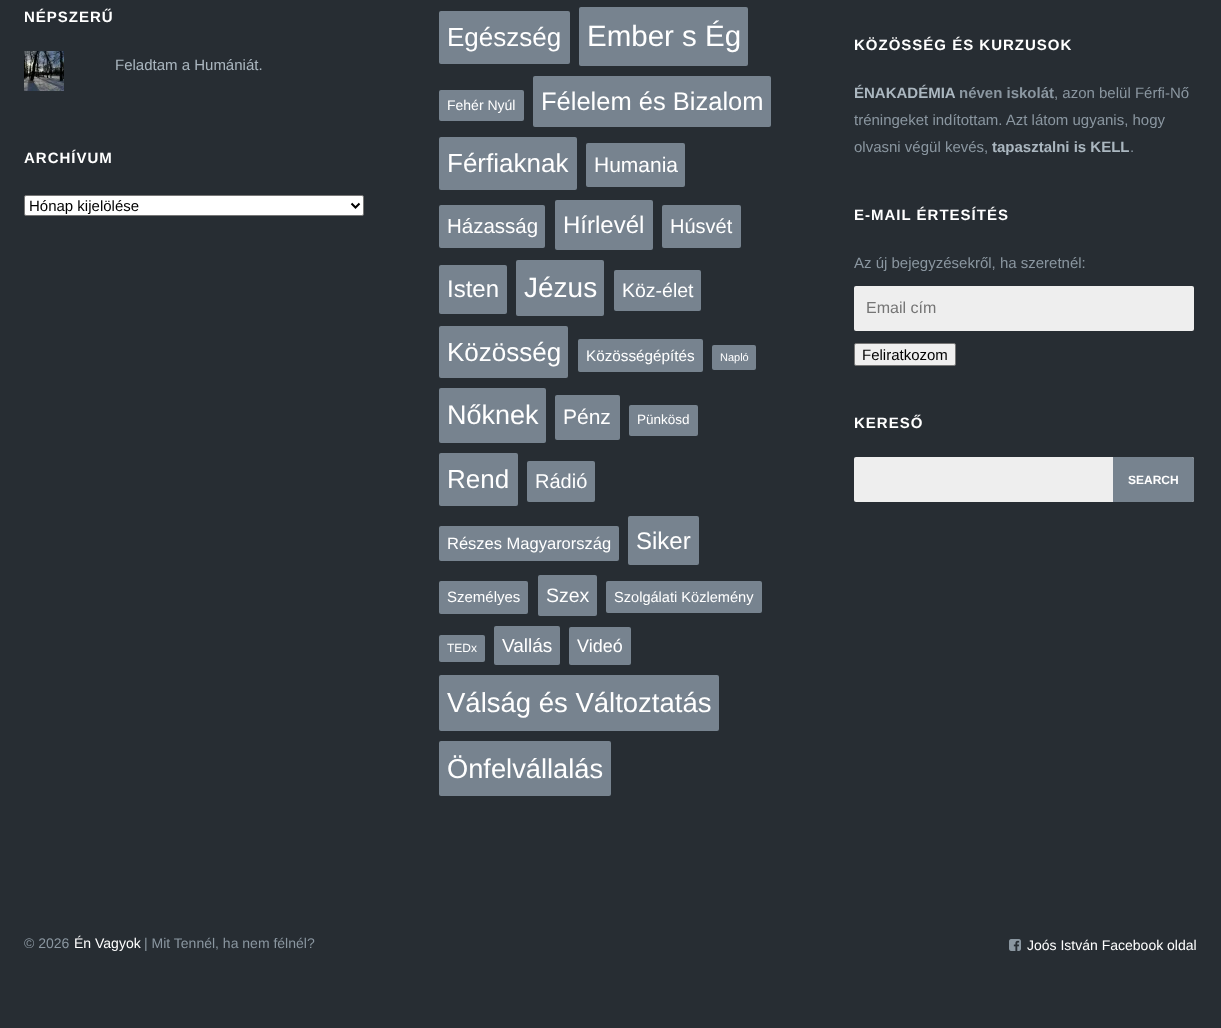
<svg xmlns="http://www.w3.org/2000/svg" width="1221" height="1028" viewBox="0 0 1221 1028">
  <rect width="100%" height="100%" fill="#272d33"/>
  <image x="24" y="51" width="40" height="40" href="img/1.png"/>
  <rect x="24.5" y="195.5" width="339" height="20" rx="1.5" fill="#fff" stroke="#767676"/>
  <path d="M351.5 203.5L355.5 207.5L359.5 203.5" fill="none" stroke="#000" stroke-width="2"/>
  <rect x="439" y="11" width="131" height="53" rx="2" fill="#77838f"/>
  <rect x="579" y="7" width="169" height="59" rx="2" fill="#77838f"/>
  <rect x="439" y="90" width="85" height="31" rx="2" fill="#77838f"/>
  <rect x="533" y="76" width="238" height="51" rx="2" fill="#77838f"/>
  <rect x="439" y="137" width="138" height="53" rx="2" fill="#77838f"/>
  <rect x="586" y="143" width="99" height="44" rx="2" fill="#77838f"/>
  <rect x="439" y="205" width="106" height="43" rx="2" fill="#77838f"/>
  <rect x="555" y="200" width="98" height="50" rx="2" fill="#77838f"/>
  <rect x="662" y="205" width="79" height="43" rx="2" fill="#77838f"/>
  <rect x="439" y="265" width="68" height="49" rx="2" fill="#77838f"/>
  <rect x="516" y="260" width="88" height="56" rx="2" fill="#77838f"/>
  <rect x="614" y="270" width="87" height="41" rx="2" fill="#77838f"/>
  <rect x="439" y="326" width="129" height="52" rx="2" fill="#77838f"/>
  <rect x="578" y="339" width="125" height="33" rx="2" fill="#77838f"/>
  <rect x="712" y="345" width="44" height="25" rx="2" fill="#77838f"/>
  <rect x="439" y="388" width="107" height="55" rx="2" fill="#77838f"/>
  <rect x="555" y="395" width="65" height="45" rx="2" fill="#77838f"/>
  <rect x="629" y="405" width="69" height="31" rx="2" fill="#77838f"/>
  <rect x="439" y="453" width="79" height="53" rx="2" fill="#77838f"/>
  <rect x="527" y="461" width="68" height="41" rx="2" fill="#77838f"/>
  <rect x="439" y="526" width="180" height="35" rx="2" fill="#77838f"/>
  <rect x="628" y="516" width="71" height="49" rx="2" fill="#77838f"/>
  <rect x="439" y="581" width="89" height="33" rx="2" fill="#77838f"/>
  <rect x="538" y="575" width="59" height="41" rx="2" fill="#77838f"/>
  <rect x="606" y="581" width="156" height="32" rx="2" fill="#77838f"/>
  <rect x="439" y="635" width="46" height="27" rx="2" fill="#77838f"/>
  <rect x="494" y="626" width="66" height="39" rx="2" fill="#77838f"/>
  <rect x="569" y="627" width="62" height="38" rx="2" fill="#77838f"/>
  <rect x="439" y="675" width="280" height="56" rx="2" fill="#77838f"/>
  <rect x="439" y="741" width="172" height="55" rx="2" fill="#77838f"/>
  <rect x="854" y="286" width="340" height="45" rx="2" fill="#eee"/>
  <rect x="854.5" y="343.5" width="101" height="22" rx="1.5" fill="#efefef" stroke="#767676"/>
  <rect x="854" y="457" width="340" height="45" rx="2" fill="#eee"/>
  <path d="M1113 457H1192C1193 457 1194 458 1194 459V500C1194 501 1193 502 1192 502H1113Z" fill="#77838f"/>
  <image x="1009" y="939" width="12" height="12" href="img/2.png"/>
  <text x="24" y="22" font-family="Arimo" font-size="15" font-weight="bold" letter-spacing="1" fill="#fff">NÉPSZERŰ</text>
  <text x="115" y="70" font-family="Arimo" font-size="15" fill="#abb7c0">Feladtam a Humániát.</text>
  <text x="24" y="163" font-family="Arimo" font-size="15" font-weight="bold" letter-spacing="1" fill="#fff">ARCHÍVUM</text>
  <text x="29" y="211" font-family="Liberation Sans" font-size="15" fill="#000">Hónap kijelölése</text>
  <text x="447" y="46" font-family="Arimo" font-size="26" fill="#fff">Egészség</text>
  <text x="587" y="46" font-family="Arimo" font-size="29.5" fill="#fff">Ember s Ég</text>
  <text x="447" y="110" font-family="Arimo" font-size="14" fill="#fff">Fehér Nyúl</text>
  <text x="541" y="110" font-family="Arimo" font-size="25.5" fill="#fff">Félelem és Bizalom</text>
  <text x="447" y="172" font-family="Arimo" font-size="26" fill="#fff">Férfiaknak</text>
  <text x="594" y="172" font-family="Arimo" font-size="21" fill="#fff">Humania</text>
  <text x="447" y="233" font-family="Arimo" font-size="20.5" fill="#fff">Házasság</text>
  <text x="563" y="233" font-family="Arimo" font-size="24" fill="#fff">Hírlevél</text>
  <text x="670" y="233" font-family="Arimo" font-size="20" fill="#fff">Húsvét</text>
  <text x="447" y="297" font-family="Arimo" font-size="24" fill="#fff">Isten</text>
  <text x="524" y="297" font-family="Arimo" font-size="28" fill="#fff">Jézus</text>
  <text x="622" y="297" font-family="Arimo" font-size="19.5" fill="#fff">Köz-élet</text>
  <text x="447" y="361" font-family="Arimo" font-size="26" fill="#fff">Közösség</text>
  <text x="586" y="361" font-family="Arimo" font-size="15.25" fill="#fff">Közösségépítés</text>
  <text x="720" y="361" font-family="Arimo" font-size="11" fill="#fff">Napló</text>
  <text x="447" y="424" font-family="Arimo" font-size="27" fill="#fff">Nőknek</text>
  <text x="563" y="424" font-family="Arimo" font-size="21" fill="#fff">Pénz</text>
  <text x="637" y="424" font-family="Arimo" font-size="13.5" fill="#fff">Pünkösd</text>
  <text x="447" y="488" font-family="Arimo" font-size="26" fill="#fff">Rend</text>
  <text x="535" y="488" font-family="Arimo" font-size="20" fill="#fff">Rádió</text>
  <text x="447" y="549" font-family="Arimo" font-size="16.5" fill="#fff">Részes Magyarország</text>
  <text x="636" y="549" font-family="Arimo" font-size="24" fill="#fff">Siker</text>
  <text x="447" y="602" font-family="Arimo" font-size="15" fill="#fff">Személyes</text>
  <text x="546" y="602" font-family="Arimo" font-size="19.5" fill="#fff">Szex</text>
  <text x="614" y="602" font-family="Arimo" font-size="14.6" fill="#fff">Szolgálati Közlemény</text>
  <text x="447" y="652" font-family="Arimo" font-size="12" fill="#fff">TEDx</text>
  <text x="502" y="652" font-family="Arimo" font-size="19" fill="#fff">Vallás</text>
  <text x="577" y="652" font-family="Arimo" font-size="18" fill="#fff">Videó</text>
  <text x="447" y="712" font-family="Arimo" font-size="27.5" fill="#fff">Válság és Változtatás</text>
  <text x="447" y="778" font-family="Arimo" font-size="27.25" fill="#fff">Önfelvállalás</text>
  <text x="854" y="50" font-family="Arimo" font-size="15" font-weight="bold" letter-spacing="1" fill="#fff">KÖZÖSSÉG ÉS KURZUSOK</text>
  <text x="854" y="98" font-family="Arimo" font-size="15" font-weight="bold" fill="#abb7c0">ÉNAKADÉMIA</text>
  <text x="959" y="98" font-family="Arimo" font-size="15" font-weight="bold" fill="#8a96a0">néven iskolát</text>
  <g font-family="Arimo" font-size="15" fill="#8a96a0">
    <text x="1054" y="98">, azon belül Férfi-Nő</text>
    <text x="854" y="125">tréningeket indítottam. Azt látom ugyanis, hogy</text>
    <text x="854" y="152">olvasni végül kevés,</text>
  </g>
  <text x="992" y="152" font-family="Arimo" font-size="15" font-weight="bold" fill="#abb7c0">tapasztalni is KELL</text>
  <text x="1130" y="152" font-family="Arimo" font-size="15" fill="#8a96a0">.</text>
  <text x="854" y="220" font-family="Arimo" font-size="15" font-weight="bold" letter-spacing="1" fill="#fff">E-MAIL ÉRTESÍTÉS</text>
  <text x="854" y="268" font-family="Arimo" font-size="15" fill="#8a96a0">Az új bejegyzésekről, ha szeretnél:</text>
  <text x="866" y="313" font-family="Arimo" font-size="16" fill="#757575">Email cím</text>
  <text x="862" y="360" font-family="Liberation Sans" font-size="15" fill="#000">Feliratkozom</text>
  <text x="854" y="428" font-family="Arimo" font-size="15" font-weight="bold" letter-spacing="1" fill="#fff">KERESŐ</text>
  <text x="1128" y="484" font-family="Liberation Sans" font-size="12" font-weight="bold" fill="#fff">SEARCH</text>
  <text x="24" y="948" font-family="Arimo" font-size="14" fill="#8a96a0">© 2026</text>
  <text x="74" y="948" font-family="Arimo" font-size="14" fill="#fff">Én Vagyok</text>
  <text x="144" y="948" font-family="Arimo" font-size="14" fill="#8a96a0">| Mit Tennél, ha nem félnél?</text>
  <text x="1027" y="950" font-family="Arimo" font-size="14" fill="#fff">Joós István Facebook oldal</text>
</svg>
